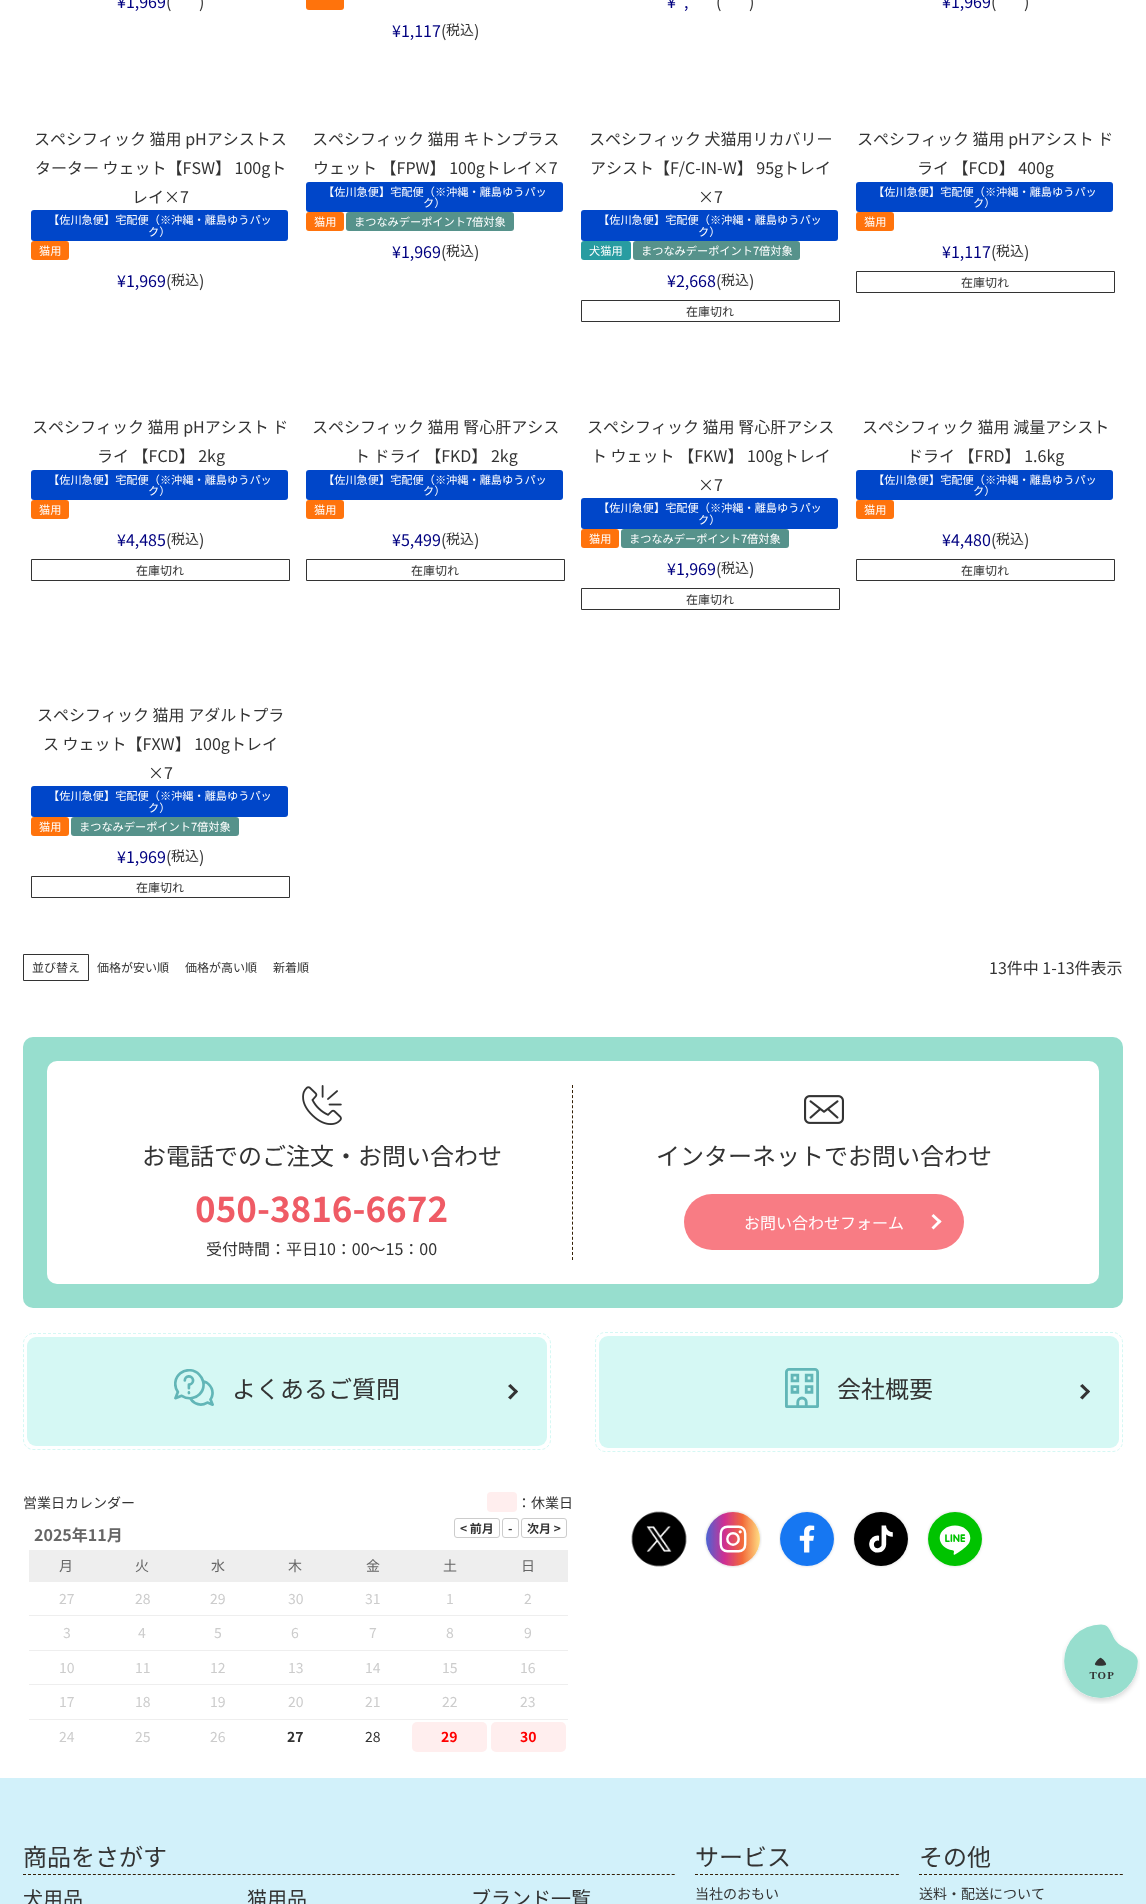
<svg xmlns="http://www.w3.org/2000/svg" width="1146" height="1904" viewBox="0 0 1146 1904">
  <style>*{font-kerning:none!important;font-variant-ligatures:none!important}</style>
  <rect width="100%" height="100%" fill="#fff"/>
  <rect x="306" y="-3" width="38" height="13" rx="3" fill="#ff730c"/>
  <rect x="31" y="210" width="257" height="31" rx="3" fill="#0046c9"/>
  <rect x="31" y="241" width="38" height="19" rx="3" fill="#ff730c"/>
  <rect x="306" y="182" width="257" height="30" rx="3" fill="#0046c9"/>
  <rect x="306" y="212" width="38" height="19" rx="3" fill="#ff730c"/>
  <rect x="346" y="212" width="168" height="19" rx="3" fill="#56928b"/>
  <rect x="581" y="210" width="257" height="31" rx="3" fill="#0046c9"/>
  <rect x="581" y="241" width="50" height="19" rx="3" fill="#289ca1"/>
  <rect x="633" y="241" width="167" height="19" rx="3" fill="#56928b"/>
  <path d="M581.5 300.5h258v21H581.5z" fill="none" stroke="#333"/>
  <rect x="856" y="182" width="257" height="30" rx="3" fill="#0046c9"/>
  <rect x="856" y="212" width="38" height="19" rx="3" fill="#ff730c"/>
  <path d="M856.5 271.5h258v21H856.5z" fill="none" stroke="#333"/>
  <rect x="31" y="470" width="257" height="30" rx="3" fill="#0046c9"/>
  <rect x="31" y="500" width="38" height="19" rx="3" fill="#ff730c"/>
  <path d="M31.5 559.5h258v21H31.5z" fill="none" stroke="#333"/>
  <rect x="306" y="470" width="257" height="30" rx="3" fill="#0046c9"/>
  <rect x="306" y="500" width="38" height="19" rx="3" fill="#ff730c"/>
  <path d="M306.5 559.5h258v21H306.5z" fill="none" stroke="#333"/>
  <rect x="581" y="498" width="257" height="31" rx="3" fill="#0046c9"/>
  <rect x="581" y="529" width="38" height="19" rx="3" fill="#ff730c"/>
  <rect x="621" y="529" width="168" height="19" rx="3" fill="#56928b"/>
  <path d="M581.5 588.5h258v21H581.5z" fill="none" stroke="#333"/>
  <rect x="856" y="470" width="257" height="30" rx="3" fill="#0046c9"/>
  <rect x="856" y="500" width="38" height="19" rx="3" fill="#ff730c"/>
  <path d="M856.5 559.5h258v21H856.5z" fill="none" stroke="#333"/>
  <rect x="31" y="786" width="257" height="31" rx="3" fill="#0046c9"/>
  <rect x="31" y="817" width="38" height="19" rx="3" fill="#ff730c"/>
  <rect x="71" y="817" width="168" height="19" rx="3" fill="#56928b"/>
  <path d="M31.5 876.5h258v21H31.5z" fill="none" stroke="#333"/>
  <path d="M23.5 954.5h65v26H23.5z" fill="none" stroke="#333"/>
  <rect x="23" y="1037" width="1100" height="271" rx="10" fill="#97dece"/>
  <rect x="47" y="1061" width="1052" height="223" rx="10" fill="#fff"/>
  <path d="M572.5 1085V1260" fill="none" stroke="#341f06" stroke-dasharray="3 2.06"/>
  <image x="302" y="1085" width="40" height="40" href="img/1.png"/>
  <image x="804" y="1095" width="40" height="29" href="img/2.png"/>
  <rect x="684" y="1194" width="280" height="56" rx="28" fill="#f87c84"/>
  <path d="M933.5 1214L941.5 1221.5L939.5 1223.5L931.5 1216Z" fill="#fff"/>
  <path d="M939.5 1219.5L941.5 1221.5L933.5 1229.5L931.5 1227.5Z" fill="#fff"/>
  <path d="M33 1333.5H541C546 1333.5 550.5 1338 550.5 1343V1440C550.5 1445 546 1449.5 541 1449.5H33C28 1449.5 23.5 1445 23.5 1440V1343C23.5 1338 28 1333.5 33 1333.5Z" fill="none" stroke="#d5f8f4" stroke-dasharray="3 2"/>
  <rect x="27" y="1337" width="520" height="109" rx="9" fill="#d5f8f4"/>
  <image x="174" y="1369" width="40" height="37" href="img/3.png"/>
  <path d="M510.5 1384L518 1391.5L516 1393.5L508 1386Z" fill="#333"/>
  <path d="M516 1389.5L518 1391.5L510.5 1399.5L508 1397.5Z" fill="#333"/>
  <path d="M605 1332.5H1113C1118 1332.5 1122.5 1337 1122.5 1342V1442C1122.5 1447 1118 1451.5 1113 1451.5H605C600 1451.5 595.5 1447 595.5 1442V1342C595.5 1337 600 1332.5 605 1332.5Z" fill="none" stroke="#d5f8f4" stroke-dasharray="3 2"/>
  <rect x="599" y="1336" width="520" height="112" rx="9" fill="#d5f8f4"/>
  <image x="785" y="1368" width="34" height="40" href="img/4.png"/>
  <path d="M1082.5 1384L1090 1391.5L1088 1393.5L1080 1386Z" fill="#333"/>
  <path d="M1088 1389.5L1090 1391.5L1082.5 1399.5L1080 1397.5Z" fill="#333"/>
  <rect x="487" y="1492" width="30" height="20" rx="4" fill="#fee"/>
  <rect x="454.5" y="1518.5" width="45" height="19" rx="2.5" fill="none" stroke="#ccc"/>
  <rect x="502.5" y="1518.5" width="16" height="19" rx="2.5" fill="none" stroke="#ccc"/>
  <rect x="521.5" y="1518.5" width="45" height="19" rx="2.5" fill="none" stroke="#ccc"/>
  <path d="M29 1550h539v31H29z" fill="#eee"/>
  <path d="M29 1581h539v1H29z" fill="#eee"/>
  <path d="M29 1615h539v1H29z" fill="#eee"/>
  <path d="M29 1650h539v1H29z" fill="#eee"/>
  <path d="M29 1684h539v1H29z" fill="#eee"/>
  <path d="M29 1719h539v1H29z" fill="#eee"/>
  <rect x="412" y="1722" width="75" height="30" rx="5" fill="#fee"/>
  <rect x="491" y="1722" width="75" height="30" rx="5" fill="#fee"/>
  <image x="631" y="1511" width="56" height="56" href="img/5.png"/>
  <image x="704" y="1510" width="58" height="58" href="img/6.png"/>
  <image x="779" y="1510" width="56" height="58" href="img/7.png"/>
  <image x="853" y="1510" width="56" height="58" href="img/8.png"/>
  <image x="927" y="1510" width="56" height="58" href="img/9.png"/>
  <image x="1062" y="1624" width="78" height="80" href="img/10.png"/>
  <path d="M0 1778h1146v126H0z" fill="#d2f1fa"/>
  <path d="M23 1874.5H675" fill="none" stroke="#341f06" stroke-dasharray="3 1.99"/>
  <path d="M695 1874.5H899" fill="none" stroke="#341f06" stroke-dasharray="3 2.02"/>
  <path d="M919 1874.5H1123" fill="none" stroke="#341f06" stroke-dasharray="3 2.02"/>
  <text x="117" y="8" font-family="Noto Sans JP" font-size="16" fill="#000080">¥1,969</text>
  <g font-family="Noto Sans JP" font-size="16" fill="#333">
    <text x="166" y="8">(</text>
    <text x="199" y="8">)</text>
  </g>
  <g font-family="Noto Sans JP" font-size="16" fill="#000080">
    <text x="667" y="8">¥</text>
    <text x="684" y="8">,</text>
  </g>
  <g font-family="Noto Sans JP" font-size="16" fill="#333">
    <text x="716" y="8">(</text>
    <text x="749" y="8">)</text>
  </g>
  <text x="942" y="8" font-family="Noto Sans JP" font-size="16" fill="#000080">¥1,969</text>
  <g font-family="Noto Sans JP" font-size="16" fill="#333">
    <text x="991" y="8">(</text>
    <text x="1024" y="8">)</text>
  </g>
  <text x="392" y="37" font-family="Noto Sans JP" font-size="16" fill="#000080">¥1,117</text>
  <text x="441" y="37" font-family="Noto Sans JP" font-size="16" fill="#333">(</text>
  <text x="446" y="35" font-family="Noto Sans JP" font-size="14" fill="#333">税込</text>
  <g font-family="Noto Sans JP" font-size="16" fill="#333">
    <text x="474" y="37">)</text>
    <text x="34" y="145">スペシフィック 猫用 pHアシストス</text>
    <text x="35" y="174">ターター ウェット【FSW】 100gト</text>
    <text x="132" y="203">レイ×7</text>
  </g>
  <g font-family="Noto Sans JP" font-size="11.2" fill="#fff">
    <text x="48" y="224">【佐川急便】宅配便（※沖縄・離島ゆうパッ</text>
    <text x="148" y="236">ク）</text>
    <text x="39" y="255">猫用</text>
  </g>
  <text x="117" y="287" font-family="Noto Sans JP" font-size="16" fill="#000080">¥1,969</text>
  <text x="166" y="287" font-family="Noto Sans JP" font-size="16" fill="#333">(</text>
  <text x="171" y="285" font-family="Noto Sans JP" font-size="14" fill="#333">税込</text>
  <g font-family="Noto Sans JP" font-size="16" fill="#333">
    <text x="199" y="287">)</text>
    <text x="312" y="145">スペシフィック 猫用 キトンプラス</text>
    <text x="313" y="174">ウェット 【FPW】 100gトレイ×7</text>
  </g>
  <g font-family="Noto Sans JP" font-size="11.2" fill="#fff">
    <text x="323" y="196">【佐川急便】宅配便（※沖縄・離島ゆうパッ</text>
    <text x="423" y="207">ク）</text>
    <text x="314" y="226">猫用</text>
    <text x="354" y="226">まつなみデーポイント7倍対象</text>
  </g>
  <text x="392" y="258" font-family="Noto Sans JP" font-size="16" fill="#000080">¥1,969</text>
  <text x="441" y="258" font-family="Noto Sans JP" font-size="16" fill="#333">(</text>
  <text x="446" y="256" font-family="Noto Sans JP" font-size="14" fill="#333">税込</text>
  <g font-family="Noto Sans JP" font-size="16" fill="#333">
    <text x="474" y="258">)</text>
    <text x="589" y="145">スペシフィック 犬猫用リカバリー</text>
    <text x="590" y="174">アシスト【F/C-IN-W】 95gトレイ</text>
    <text x="698" y="203">×7</text>
  </g>
  <g font-family="Noto Sans JP" font-size="11.2" fill="#fff">
    <text x="598" y="224">【佐川急便】宅配便（※沖縄・離島ゆうパッ</text>
    <text x="698" y="236">ク）</text>
    <text x="589" y="255">犬猫用</text>
    <text x="641" y="255">まつなみデーポイント7倍対象</text>
  </g>
  <text x="667" y="287" font-family="Noto Sans JP" font-size="16" fill="#000080">¥2,668</text>
  <text x="716" y="287" font-family="Noto Sans JP" font-size="16" fill="#333">(</text>
  <text x="721" y="285" font-family="Noto Sans JP" font-size="14" fill="#333">税込</text>
  <text x="749" y="287" font-family="Noto Sans JP" font-size="16" fill="#333">)</text>
  <text x="686" y="316" font-family="Noto Sans JP" font-size="12" fill="#333">在庫切れ</text>
  <g font-family="Noto Sans JP" font-size="16" fill="#333">
    <text x="857" y="145">スペシフィック 猫用 pHアシスト ド</text>
    <text x="917" y="174">ライ 【FCD】 400g</text>
  </g>
  <g font-family="Noto Sans JP" font-size="11.2" fill="#fff">
    <text x="873" y="196">【佐川急便】宅配便（※沖縄・離島ゆうパッ</text>
    <text x="973" y="207">ク）</text>
    <text x="864" y="226">猫用</text>
  </g>
  <text x="942" y="258" font-family="Noto Sans JP" font-size="16" fill="#000080">¥1,117</text>
  <text x="991" y="258" font-family="Noto Sans JP" font-size="16" fill="#333">(</text>
  <text x="996" y="256" font-family="Noto Sans JP" font-size="14" fill="#333">税込</text>
  <text x="1024" y="258" font-family="Noto Sans JP" font-size="16" fill="#333">)</text>
  <text x="961" y="287" font-family="Noto Sans JP" font-size="12" fill="#333">在庫切れ</text>
  <g font-family="Noto Sans JP" font-size="16" fill="#333">
    <text x="32" y="433">スペシフィック 猫用 pHアシスト ド</text>
    <text x="97" y="462">ライ 【FCD】 2kg</text>
  </g>
  <g font-family="Noto Sans JP" font-size="11.2" fill="#fff">
    <text x="48" y="484">【佐川急便】宅配便（※沖縄・離島ゆうパッ</text>
    <text x="148" y="495">ク）</text>
    <text x="39" y="514">猫用</text>
  </g>
  <text x="117" y="546" font-family="Noto Sans JP" font-size="16" fill="#000080">¥4,485</text>
  <text x="166" y="546" font-family="Noto Sans JP" font-size="16" fill="#333">(</text>
  <text x="171" y="544" font-family="Noto Sans JP" font-size="14" fill="#333">税込</text>
  <text x="199" y="546" font-family="Noto Sans JP" font-size="16" fill="#333">)</text>
  <text x="136" y="575" font-family="Noto Sans JP" font-size="12" fill="#333">在庫切れ</text>
  <g font-family="Noto Sans JP" font-size="16" fill="#333">
    <text x="312" y="433">スペシフィック 猫用 腎心肝アシス</text>
    <text x="354" y="462">ト ドライ 【FKD】 2kg</text>
  </g>
  <g font-family="Noto Sans JP" font-size="11.2" fill="#fff">
    <text x="323" y="484">【佐川急便】宅配便（※沖縄・離島ゆうパッ</text>
    <text x="423" y="495">ク）</text>
    <text x="314" y="514">猫用</text>
  </g>
  <text x="392" y="546" font-family="Noto Sans JP" font-size="16" fill="#000080">¥5,499</text>
  <text x="441" y="546" font-family="Noto Sans JP" font-size="16" fill="#333">(</text>
  <text x="446" y="544" font-family="Noto Sans JP" font-size="14" fill="#333">税込</text>
  <text x="474" y="546" font-family="Noto Sans JP" font-size="16" fill="#333">)</text>
  <text x="411" y="575" font-family="Noto Sans JP" font-size="12" fill="#333">在庫切れ</text>
  <g font-family="Noto Sans JP" font-size="16" fill="#333">
    <text x="587" y="433">スペシフィック 猫用 腎心肝アシス</text>
    <text x="591" y="462">ト ウェット 【FKW】 100gトレイ</text>
    <text x="698" y="491">×7</text>
  </g>
  <g font-family="Noto Sans JP" font-size="11.2" fill="#fff">
    <text x="598" y="512">【佐川急便】宅配便（※沖縄・離島ゆうパッ</text>
    <text x="698" y="524">ク）</text>
    <text x="589" y="543">猫用</text>
    <text x="629" y="543">まつなみデーポイント7倍対象</text>
  </g>
  <text x="667" y="575" font-family="Noto Sans JP" font-size="16" fill="#000080">¥1,969</text>
  <text x="716" y="575" font-family="Noto Sans JP" font-size="16" fill="#333">(</text>
  <text x="721" y="573" font-family="Noto Sans JP" font-size="14" fill="#333">税込</text>
  <text x="749" y="575" font-family="Noto Sans JP" font-size="16" fill="#333">)</text>
  <text x="686" y="604" font-family="Noto Sans JP" font-size="12" fill="#333">在庫切れ</text>
  <g font-family="Noto Sans JP" font-size="16" fill="#333">
    <text x="862" y="433">スペシフィック 猫用 減量アシスト</text>
    <text x="907" y="462">ドライ 【FRD】 1.6kg</text>
  </g>
  <g font-family="Noto Sans JP" font-size="11.2" fill="#fff">
    <text x="873" y="484">【佐川急便】宅配便（※沖縄・離島ゆうパッ</text>
    <text x="973" y="495">ク）</text>
    <text x="864" y="514">猫用</text>
  </g>
  <text x="942" y="546" font-family="Noto Sans JP" font-size="16" fill="#000080">¥4,480</text>
  <text x="991" y="546" font-family="Noto Sans JP" font-size="16" fill="#333">(</text>
  <text x="996" y="544" font-family="Noto Sans JP" font-size="14" fill="#333">税込</text>
  <text x="1024" y="546" font-family="Noto Sans JP" font-size="16" fill="#333">)</text>
  <text x="961" y="575" font-family="Noto Sans JP" font-size="12" fill="#333">在庫切れ</text>
  <g font-family="Noto Sans JP" font-size="16" fill="#333">
    <text x="37" y="721">スペシフィック 猫用 アダルトプラ</text>
    <text x="43" y="750">ス ウェット【FXW】 100gトレイ</text>
    <text x="148" y="779">×7</text>
  </g>
  <g font-family="Noto Sans JP" font-size="11.2" fill="#fff">
    <text x="48" y="800">【佐川急便】宅配便（※沖縄・離島ゆうパッ</text>
    <text x="148" y="812">ク）</text>
    <text x="39" y="831">猫用</text>
    <text x="79" y="831">まつなみデーポイント7倍対象</text>
  </g>
  <text x="117" y="863" font-family="Noto Sans JP" font-size="16" fill="#000080">¥1,969</text>
  <text x="166" y="863" font-family="Noto Sans JP" font-size="16" fill="#333">(</text>
  <text x="171" y="861" font-family="Noto Sans JP" font-size="14" fill="#333">税込</text>
  <text x="199" y="863" font-family="Noto Sans JP" font-size="16" fill="#333">)</text>
  <g font-family="Noto Sans JP" font-size="12" fill="#333">
    <text x="136" y="892">在庫切れ</text>
    <text x="32" y="972">並び替え</text>
    <text x="97" y="972">価格が安い順</text>
    <text x="185" y="972">価格が高い順</text>
    <text x="273" y="972">新着順</text>
  </g>
  <text x="989" y="974" font-family="Noto Sans JP" font-size="16" fill="#333">13件中 1-13件表示</text>
  <text x="142" y="1165" font-family="Noto Sans JP" font-size="24" fill="#333">お電話でのご注文・お問い合わせ</text>
  <text x="195" y="1222" font-family="Noto Sans JP" font-size="35" font-weight="bold" fill="#ef5b65">050-3816-6672</text>
  <text x="206" y="1255" font-family="Noto Sans JP" font-size="16" fill="#333">受付時間：平日10：00～15：00</text>
  <text x="656" y="1165" font-family="Noto Sans JP" font-size="24" fill="#333">インターネットでお問い合わせ</text>
  <text x="744" y="1229" font-family="Noto Sans JP" font-size="16" fill="#fff">お問い合わせフォーム</text>
  <g font-family="Noto Sans JP" font-size="24" fill="#333">
    <text x="232" y="1398">よくあるご質問</text>
    <text x="837" y="1398">会社概要</text>
  </g>
  <g font-family="Noto Sans JP" font-size="14" fill="#333">
    <text x="23" y="1508">営業日カレンダー</text>
    <text x="517" y="1508">：休業日</text>
  </g>
  <text x="34" y="1541" font-family="Noto Sans JP" font-size="16" font-weight="bold" fill="#666">2025年11月</text>
  <g font-family="Noto Sans JP" font-size="12" font-weight="bold" fill="#333">
    <text x="460" y="1533">&lt; 前月</text>
    <text x="508" y="1533">-</text>
    <text x="527" y="1533">次月 &gt;</text>
  </g>
  <g font-family="Noto Sans JP" font-size="14" fill="#666">
    <text x="59" y="1571">月</text>
    <text x="135" y="1571">火</text>
    <text x="211" y="1571">水</text>
    <text x="288" y="1571">木</text>
    <text x="366" y="1571">金</text>
    <text x="443" y="1571">土</text>
    <text x="521" y="1571">日</text>
  </g>
  <g font-family="Noto Sans JP" font-size="14" fill="#ccc">
    <text x="59" y="1604">27</text>
    <text x="135" y="1604">28</text>
    <text x="210" y="1604">29</text>
    <text x="288" y="1604">30</text>
    <text x="365" y="1604">31</text>
    <text x="446" y="1604">1</text>
    <text x="524" y="1604">2</text>
    <text x="63" y="1638">3</text>
    <text x="138" y="1638">4</text>
    <text x="214" y="1638">5</text>
    <text x="291" y="1638">6</text>
    <text x="369" y="1638">7</text>
    <text x="446" y="1638">8</text>
    <text x="524" y="1638">9</text>
    <text x="59" y="1673">10</text>
    <text x="135" y="1673">11</text>
    <text x="210" y="1673">12</text>
    <text x="288" y="1673">13</text>
    <text x="365" y="1673">14</text>
    <text x="442" y="1673">15</text>
    <text x="520" y="1673">16</text>
    <text x="59" y="1707">17</text>
    <text x="135" y="1707">18</text>
    <text x="210" y="1707">19</text>
    <text x="288" y="1707">20</text>
    <text x="365" y="1707">21</text>
    <text x="442" y="1707">22</text>
    <text x="520" y="1707">23</text>
    <text x="59" y="1742">24</text>
    <text x="135" y="1742">25</text>
    <text x="210" y="1742">26</text>
  </g>
  <text x="287" y="1742" font-family="Noto Sans JP" font-size="14" font-weight="bold" fill="#333">27</text>
  <text x="365" y="1742" font-family="Noto Sans JP" font-size="14" fill="#333">28</text>
  <g font-family="Noto Sans JP" font-size="14" font-weight="bold" fill="#f00">
    <text x="441" y="1742">29</text>
    <text x="520" y="1742">30</text>
  </g>
  <text x="23" y="1866" font-family="Noto Sans JP" font-size="24" fill="#333">商品をさがす</text>
  <g font-family="Noto Sans JP" font-size="20" fill="#333">
    <text x="23" y="1906">犬用品</text>
    <text x="247" y="1906">猫用品</text>
    <text x="471" y="1906">ブランド一覧</text>
  </g>
  <text x="695" y="1866" font-family="Noto Sans JP" font-size="24" fill="#333">サービス</text>
  <text x="695" y="1899" font-family="Noto Sans JP" font-size="14" fill="#333">当社のおもい</text>
  <text x="919" y="1866" font-family="Noto Sans JP" font-size="24" fill="#333">その他</text>
  <text x="919" y="1899" font-family="Noto Sans JP" font-size="14" fill="#333">送料・配送について</text>
</svg>
